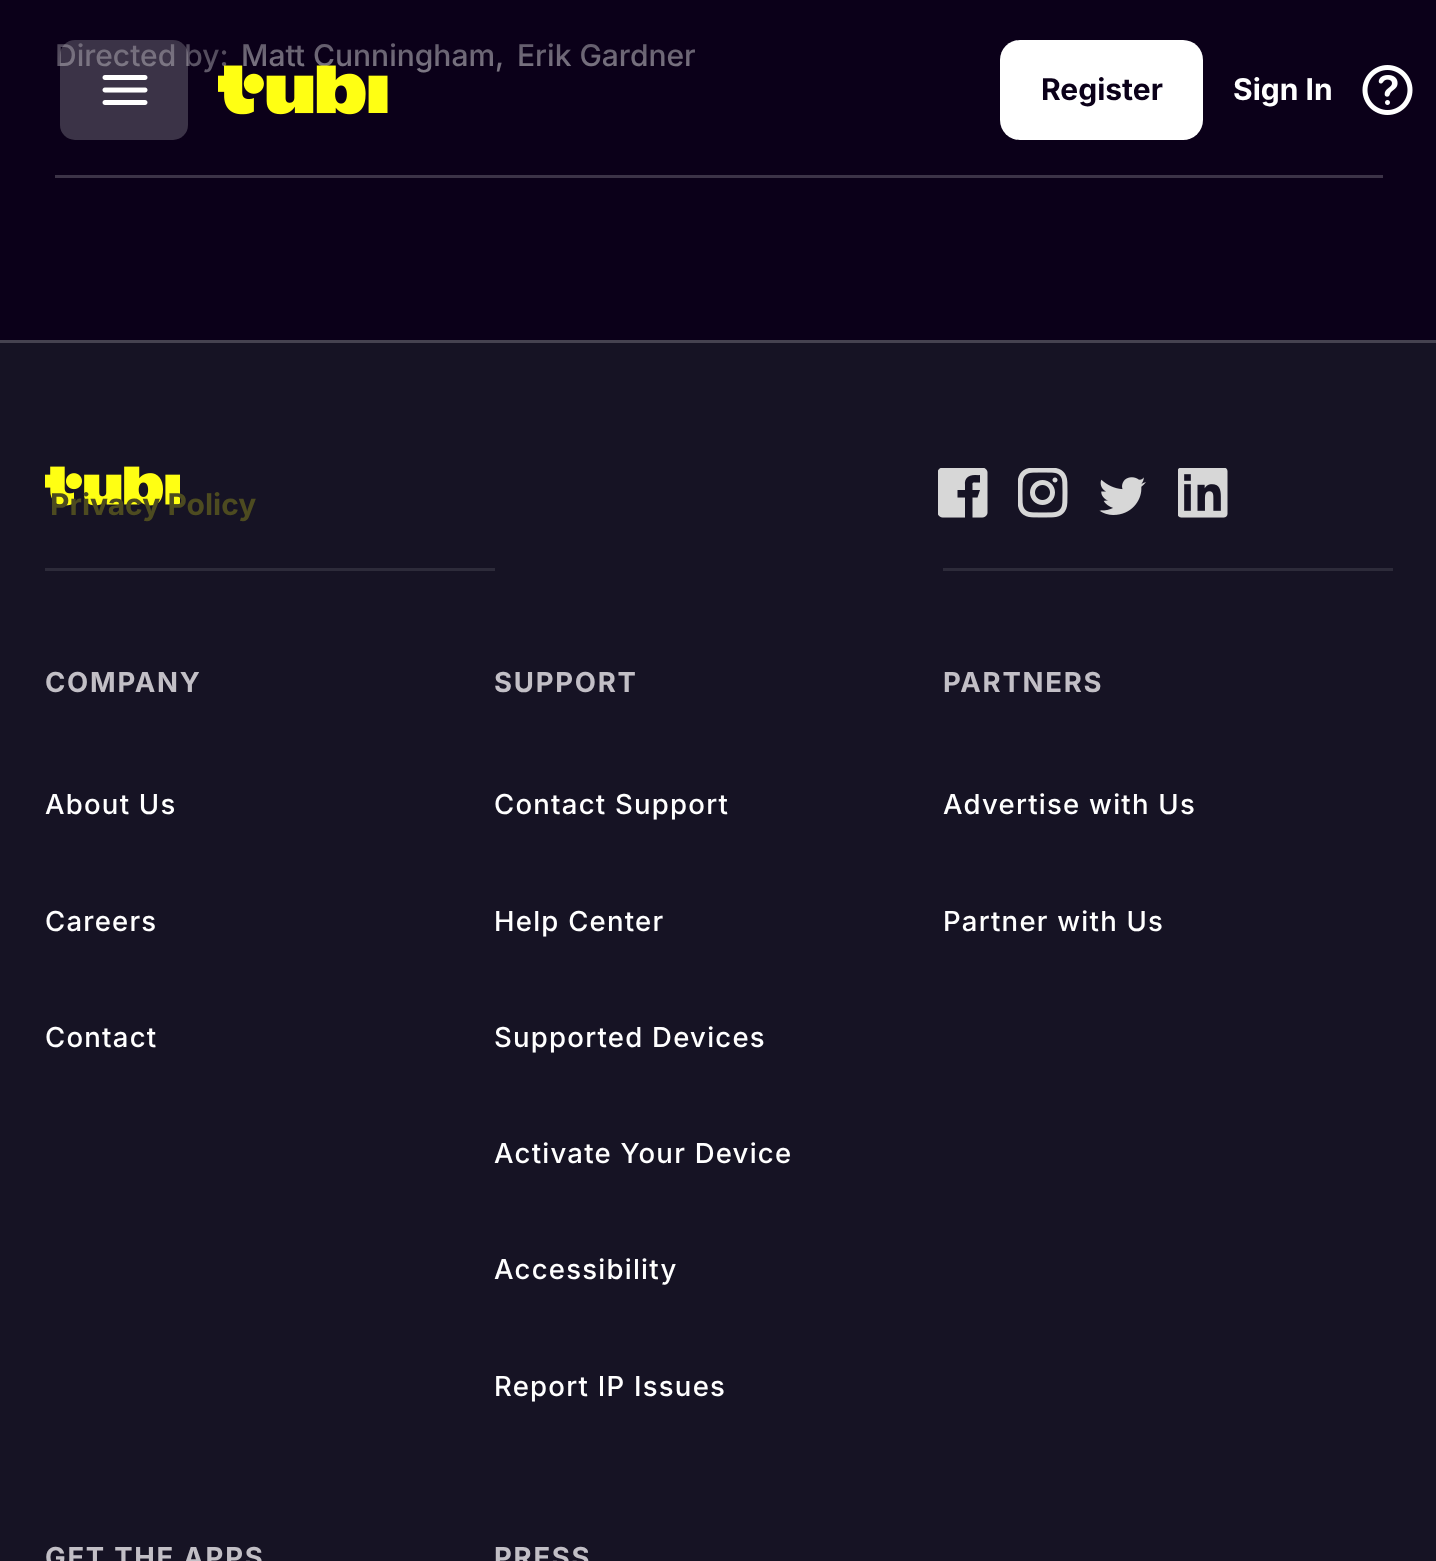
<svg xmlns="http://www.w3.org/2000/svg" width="1436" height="1561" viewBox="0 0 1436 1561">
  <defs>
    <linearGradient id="g1" gradientUnits="userSpaceOnUse" x1="719" y1="0" x2="719" y2="180"><stop offset="0.01" stop-color="#0b0019" stop-opacity="0.8"/><stop offset="0.59" stop-color="#0b0019" stop-opacity="0.4"/><stop offset="0.78" stop-color="#0b0019" stop-opacity="0.2"/><stop offset="0.96" stop-color="#0b0019" stop-opacity="0"/></linearGradient>
  </defs>
  <rect width="100%" height="100%" fill="#0b0019"/>
  <path d="M55 175h1328v3H55z" fill="#3c3347"/>
  <path d="M0 343h1436v1218H0z" fill="#161324"/>
  <path d="M0 340h1436v3H0z" fill="#454250"/>
  <image x="45" y="466" width="135" height="40" href="img/1.png"/>
  <image x="938" y="468" width="50" height="50" href="img/2.png"/>
  <image x="1018" y="468" width="50" height="50" href="img/3.png"/>
  <image x="1099" y="477" width="47" height="38" href="img/4.png"/>
  <image x="1178" y="468" width="50" height="50" href="img/5.png"/>
  <path d="M45 568h450v3H45z" fill="#2d2b3a"/>
  <path d="M943 568h450v3H943z" fill="#2d2b3a"/>
  <rect x="1000" y="40" width="203" height="100" rx="20" fill="#fff"/>
  <image x="1362" y="65" width="51" height="50" href="img/8.png"/>
  <text x="55" y="66" font-family="Inter" font-size="30" font-weight="500" fill="#c2bfc6">Directed by:</text>
  <g font-family="Inter" font-size="30" font-weight="500" fill="#fff">
    <text x="241" y="66">Matt Cunningham,</text>
    <text x="517" y="66">Erik Gardner</text>
  </g>
  <text x="45" y="692" font-family="Inter" font-size="27.5" font-weight="bold" letter-spacing="1.75" fill="#c2bfc6">COMPANY</text>
  <g font-family="Inter" font-size="27.5" font-weight="500" letter-spacing="1.25" fill="#fff">
    <text x="45" y="814">About Us</text>
    <text x="45" y="931">Careers</text>
    <text x="45" y="1047">Contact</text>
  </g>
  <text x="494" y="692" font-family="Inter" font-size="27.5" font-weight="bold" letter-spacing="1.75" fill="#c2bfc6">SUPPORT</text>
  <g font-family="Inter" font-size="27.5" font-weight="500" letter-spacing="1.25" fill="#fff">
    <text x="494" y="814">Contact Support</text>
    <text x="494" y="931">Help Center</text>
    <text x="494" y="1047">Supported Devices</text>
    <text x="494" y="1163">Activate Your Device</text>
    <text x="494" y="1279">Accessibility</text>
    <text x="494" y="1396">Report IP Issues</text>
  </g>
  <text x="943" y="692" font-family="Inter" font-size="27.5" font-weight="bold" letter-spacing="1.75" fill="#c2bfc6">PARTNERS</text>
  <g font-family="Inter" font-size="27.5" font-weight="500" letter-spacing="1.25" fill="#fff">
    <text x="943" y="814">Advertise with Us</text>
    <text x="943" y="931">Partner with Us</text>
  </g>
  <g font-family="Inter" font-size="27.5" font-weight="bold" letter-spacing="1.75" fill="#c2bfc6">
    <text x="45" y="1567">GET THE APPS</text>
    <text x="494" y="1567">PRESS</text>
  </g>
  <path d="M57 43h638v30H57z" fill="url(#g1)"/>
  <rect x="60" y="40" width="128" height="100" rx="15" fill="#ffffff33"/>
  <image x="102" y="75" width="46" height="30" href="img/6.png"/>
  <image x="218" y="65" width="170" height="50" href="img/7.png"/>
  <text x="1041" y="100" font-family="Inter" font-size="30" font-weight="bold" fill="#0b0019">Register</text>
  <text x="1233" y="100" font-family="Inter" font-size="30" font-weight="bold" fill="#fff">Sign In</text>
  <text x="50" y="515" font-family="Inter" font-size="30" font-weight="bold" fill="#4d4b20">Privacy Policy</text>
</svg>
